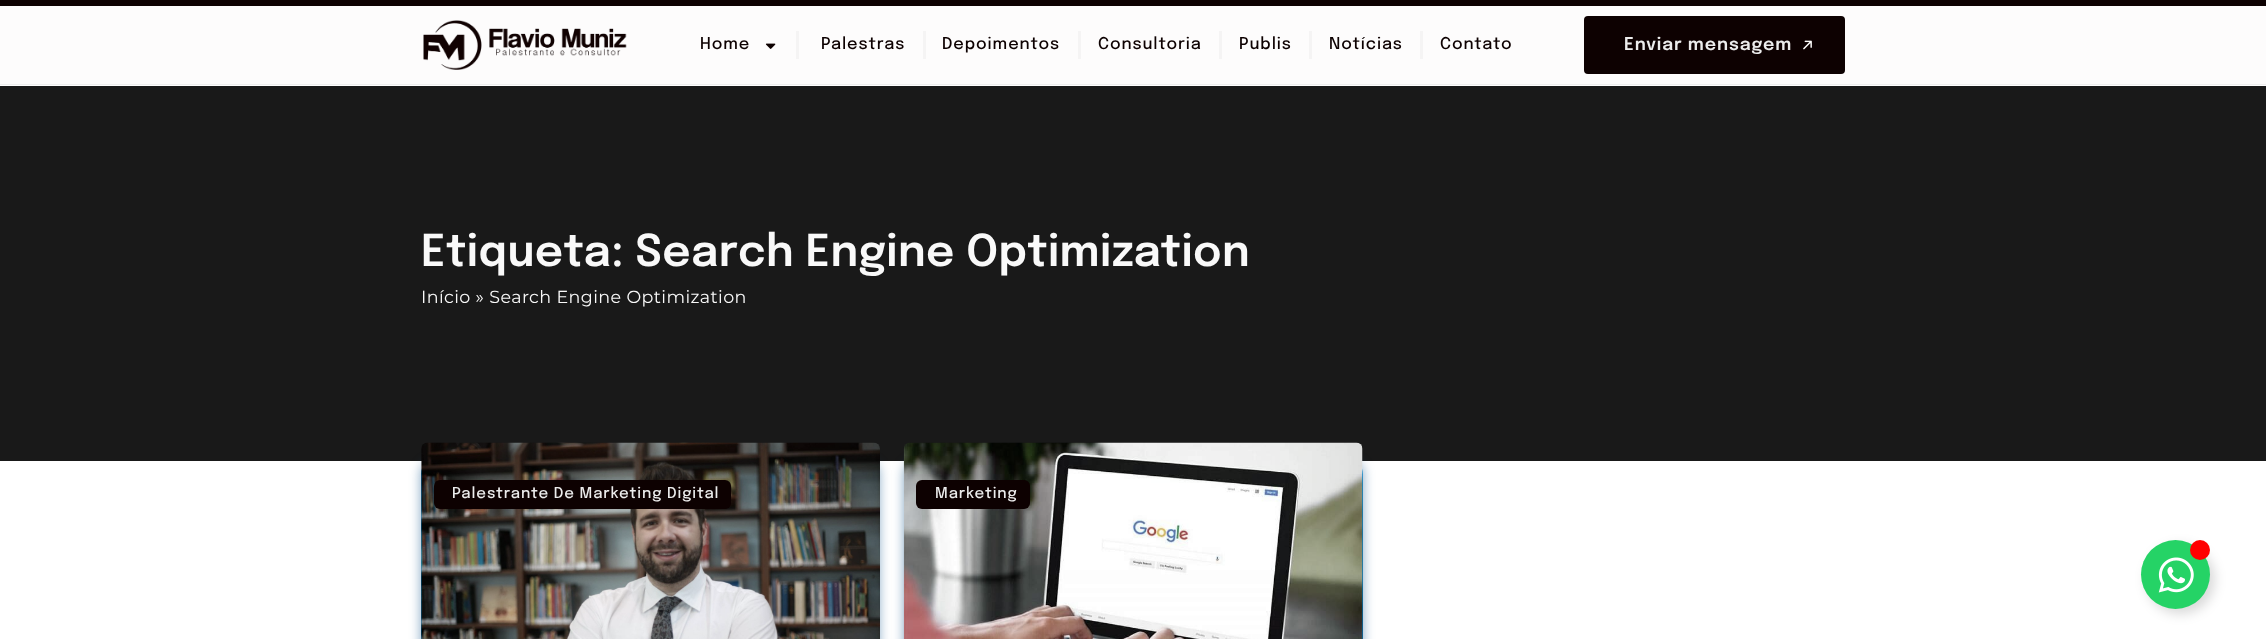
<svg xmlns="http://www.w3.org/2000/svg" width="2266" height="639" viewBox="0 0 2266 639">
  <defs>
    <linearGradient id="g1" gradientUnits="userSpaceOnUse" x1="650" y1="461" x2="650" y2="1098"><stop offset="0" stop-color="#0081c9" stop-opacity="0.97"/><stop offset="1" stop-color="#032135"/></linearGradient>
    <linearGradient id="g2" gradientUnits="userSpaceOnUse" x1="1133" y1="461" x2="1133" y2="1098"><stop offset="0" stop-color="#0081c9" stop-opacity="0.97"/><stop offset="1" stop-color="#032135"/></linearGradient>
  </defs>
  <rect width="100%" height="100%" fill="#fff"/>
  <path d="M0 0h2266v6H0z" fill="#0d0101"/>
  <path d="M0 6h2266v78H0z" fill="#fdfcfc"/>
  <path d="M0 84h2266v1H0z" fill="#eee"/>
  <image x="423" y="20" width="204" height="50" href="img/1.png"/>
  <image x="765" y="43" width="11" height="6" href="img/2.png"/>
  <path d="M796 31h3v28H796z" fill="#f5f4f4"/>
  <path d="M923 31h3v28H923z" fill="#f5f4f4"/>
  <path d="M1078 31h3v28H1078z" fill="#f5f4f4"/>
  <path d="M1219 31h3v28H1219z" fill="#f5f4f4"/>
  <path d="M1309 31h3v28H1309z" fill="#f5f4f4"/>
  <path d="M1420 31h3v28H1420z" fill="#f5f4f4"/>
  <rect x="1584" y="16" width="261" height="58" rx="4" fill="#0d0101"/>
  <image x="1803" y="40" width="9" height="10" href="img/3.png"/>
  <path d="M0 86h2266v375H0z" fill="#191919"/>
  <rect x="421" y="461" width="458" height="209" rx="13" fill="#004a877d" filter="blur(6px)"/>
  <rect x="421" y="461" width="458" height="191" rx="13" fill="url(#g1)"/>
  <image x="421" y="442" width="459" height="197" href="img/4.png"/>
  <rect x="434" y="480" width="297" height="29" rx="6" fill="#0d0101"/>
  <rect x="904" y="461" width="459" height="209" rx="13" fill="#004a877d" filter="blur(6px)"/>
  <rect x="904" y="461" width="459" height="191" rx="13" fill="url(#g2)"/>
  <image x="903" y="442" width="460" height="197" href="img/5.png"/>
  <rect x="916" y="480" width="114" height="29" rx="6" fill="#0d0101"/>
  <rect x="2146" y="545" width="69" height="69" rx="34.5" fill="#00000026" filter="blur(6px)"/>
  <circle cx="2175.5" cy="574.5" r="34.5" fill="#25d366"/>
  <image x="2158" y="557" width="36" height="36" href="img/6.png"/>
  <circle cx="2200" cy="550" r="10" fill="#f00"/>
  <g font-family="Epilogue" font-size="16.25" font-weight="500" letter-spacing="0.9" fill="#0d0101">
    <text x="700" y="49">Home</text>
    <text x="821" y="49">Palestras</text>
    <text x="942" y="49">Depoimentos</text>
    <text x="1098" y="49">Consultoria</text>
    <text x="1239" y="49">Publis</text>
    <text x="1329" y="49">Notícias</text>
    <text x="1440" y="49">Contato</text>
  </g>
  <text x="1624" y="50" font-family="Epilogue" font-size="17.5" font-weight="600" letter-spacing="0.9" fill="#ececec">Enviar mensagem</text>
  <text x="421" y="266" font-family="Epilogue" font-size="43.75" font-weight="600" letter-spacing="0.4" fill="#f9f9f9">Etiqueta: Search Engine Optimization</text>
  <text x="421" y="303" font-family="Montserrat" font-size="17.5" letter-spacing="0.4" fill="#f9f9f9">Início » Search Engine Optimization</text>
  <g font-family="Epilogue" font-size="15" font-weight="500" letter-spacing="0.9" fill="#ececec">
    <text x="452" y="498">Palestrante De Marketing Digital</text>
    <text x="935" y="498">Marketing</text>
  </g>
</svg>
